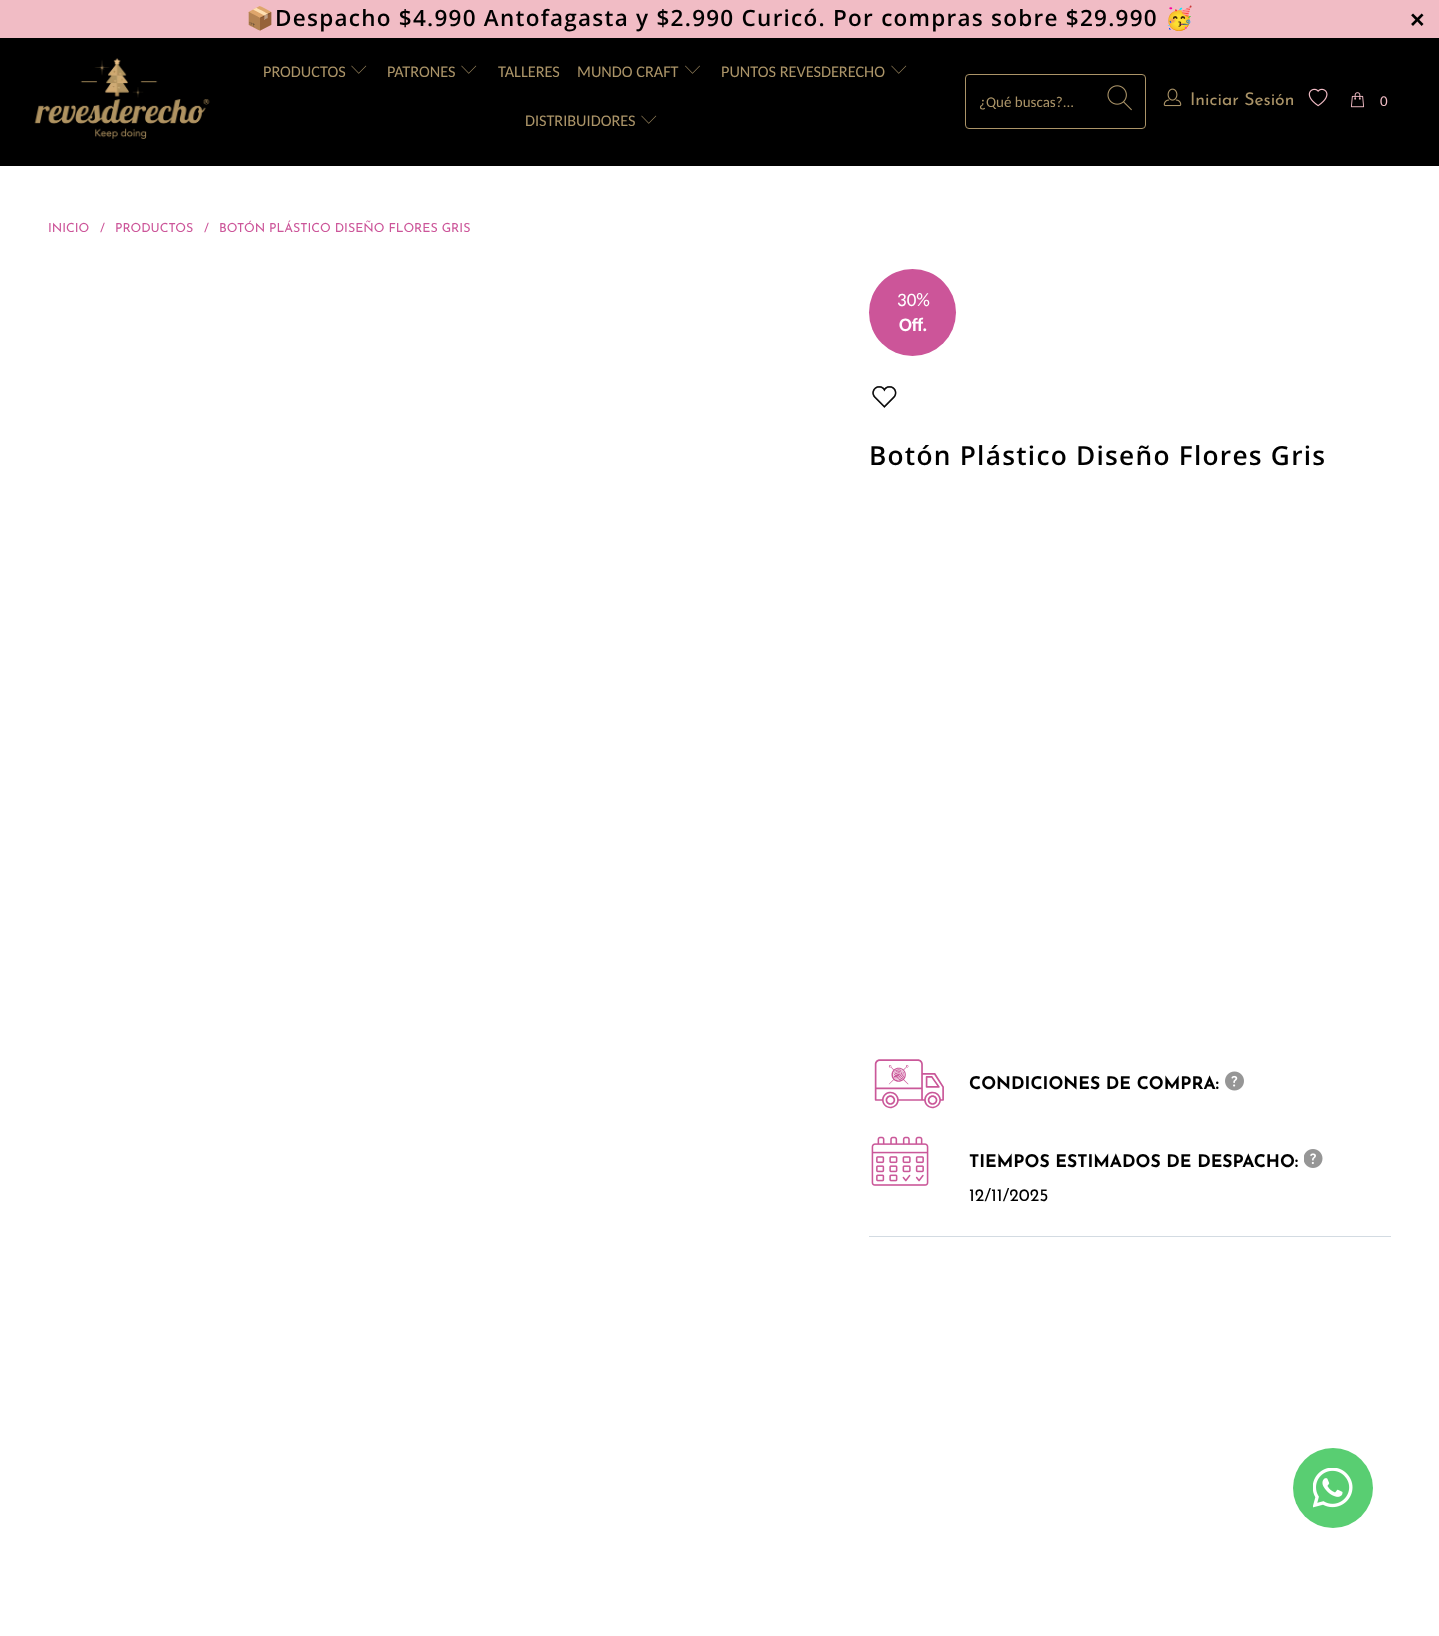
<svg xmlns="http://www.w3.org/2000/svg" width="1439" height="1636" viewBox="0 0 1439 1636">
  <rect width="100%" height="100%" fill="#fff"/>
  <path d="M0 0h1439v38H0z" fill="#f1bcc5"/>
  <path d="M0 38h1439v128H0z" fill="#000"/>
  <image x="34" y="58" width="176" height="81" href="img/1.png"/>
  <image x="351" y="65" width="16" height="9" href="img/2.png"/>
  <image x="461" y="65" width="16" height="9" href="img/2.png"/>
  <image x="685" y="65" width="15" height="9" href="img/3.png"/>
  <image x="891" y="65" width="16" height="9" href="img/2.png"/>
  <image x="641" y="115" width="16" height="9" href="img/2.png"/>
  <rect x="965.5" y="74.5" width="180" height="54" rx="3.5" fill="none" stroke="#ab9468"/>
  <image x="1107" y="85" width="25" height="26" href="img/4.png"/>
  <image x="1163" y="88" width="19" height="19" href="img/5.png"/>
  <image x="1308" y="88" width="20" height="19" href="img/6.png"/>
  <image x="1350" y="92" width="15" height="16" href="img/7.png"/>
  <circle cx="912.5" cy="312.5" r="43.5" fill="#c59"/>
  <image x="872" y="386" width="25" height="22" href="img/8.png"/>
  <path d="M869 1236h522v1H869z" fill="#d3dbe2"/>
  <image x="874" y="1059" width="70" height="50" href="img/9.png"/>
  <image x="1225" y="1071" width="19" height="20" href="img/10.png"/>
  <image x="871" y="1136" width="58" height="50" href="img/11.png"/>
  <image x="1304" y="1149" width="19" height="19" href="img/12.png"/>
  <circle cx="1333" cy="1488" r="40" fill="#59ce72"/>
  <image x="1313" y="1468" width="40" height="40" href="img/13.png"/>
  <text x="246" y="26" font-family="Noto Color Emoji" font-size="22.5" font-weight="bold" letter-spacing="1.25" fill="#000">📦</text>
  <text x="275" y="26" font-family="Open Sans" font-size="22.5" font-weight="600" letter-spacing="1.25" fill="#000">Despacho $4.990 Antofagasta y $2.990 Curicó. Por compras sobre $29.990</text>
  <text x="1165" y="26" font-family="Noto Color Emoji" font-size="22.5" font-weight="bold" letter-spacing="1.25" fill="#000">🥳</text>
  <text x="1410" y="28" font-family="Liberation Sans" font-size="25" font-weight="bold" letter-spacing="1.25" fill="#000">×</text>
  <g font-family="Carlito" font-size="16.25" fill="#ab9468">
    <text x="263" y="77">PRODUCTOS</text>
    <text x="387" y="77">PATRONES</text>
    <text x="498" y="77">TALLERES</text>
    <text x="577" y="77">MUNDO CRAFT</text>
    <text x="721" y="77">PUNTOS REVESDERECHO</text>
    <text x="525" y="126">DISTRIBUIDORES</text>
  </g>
  <text x="979" y="107" font-family="Carlito" font-size="15" fill="#ab9468">¿Qué buscas?...</text>
  <text x="1190" y="105" font-family="Josefin Sans" font-size="17.5" fill="#ab9468">Iniciar Sesión</text>
  <text x="1380" y="106" font-family="Carlito" font-size="15" letter-spacing="1.25" fill="#f1bcc5">0</text>
  <g font-family="Josefin Sans" font-size="12.5" fill="#c59">
    <text x="48" y="232">INICIO</text>
    <text x="100" y="232">/</text>
    <text x="115" y="232">PRODUCTOS</text>
    <text x="204" y="232">/</text>
    <text x="219" y="232">BOTÓN PLÁSTICO DISEÑO FLORES GRIS</text>
  </g>
  <text x="897" y="306" font-family="Carlito" font-size="19" fill="#fff">30%</text>
  <text x="899" y="331" font-family="Carlito" font-size="19" font-weight="bold" fill="#fff">Off.</text>
  <text x="869" y="465" font-family="Open Sans" font-size="26.25" font-weight="600" letter-spacing="1.25" fill="#000">Botón Plástico Diseño Flores Gris</text>
  <g font-family="Josefin Sans" font-size="17.5" font-weight="bold" fill="#000">
    <text x="969" y="1089">CONDICIONES DE COMPRA:</text>
    <text x="969" y="1167">TIEMPOS ESTIMADOS DE DESPACHO:</text>
  </g>
  <text x="969" y="1201" font-family="Josefin Sans" font-size="17.5" fill="#000">12/11/2025</text>
</svg>
